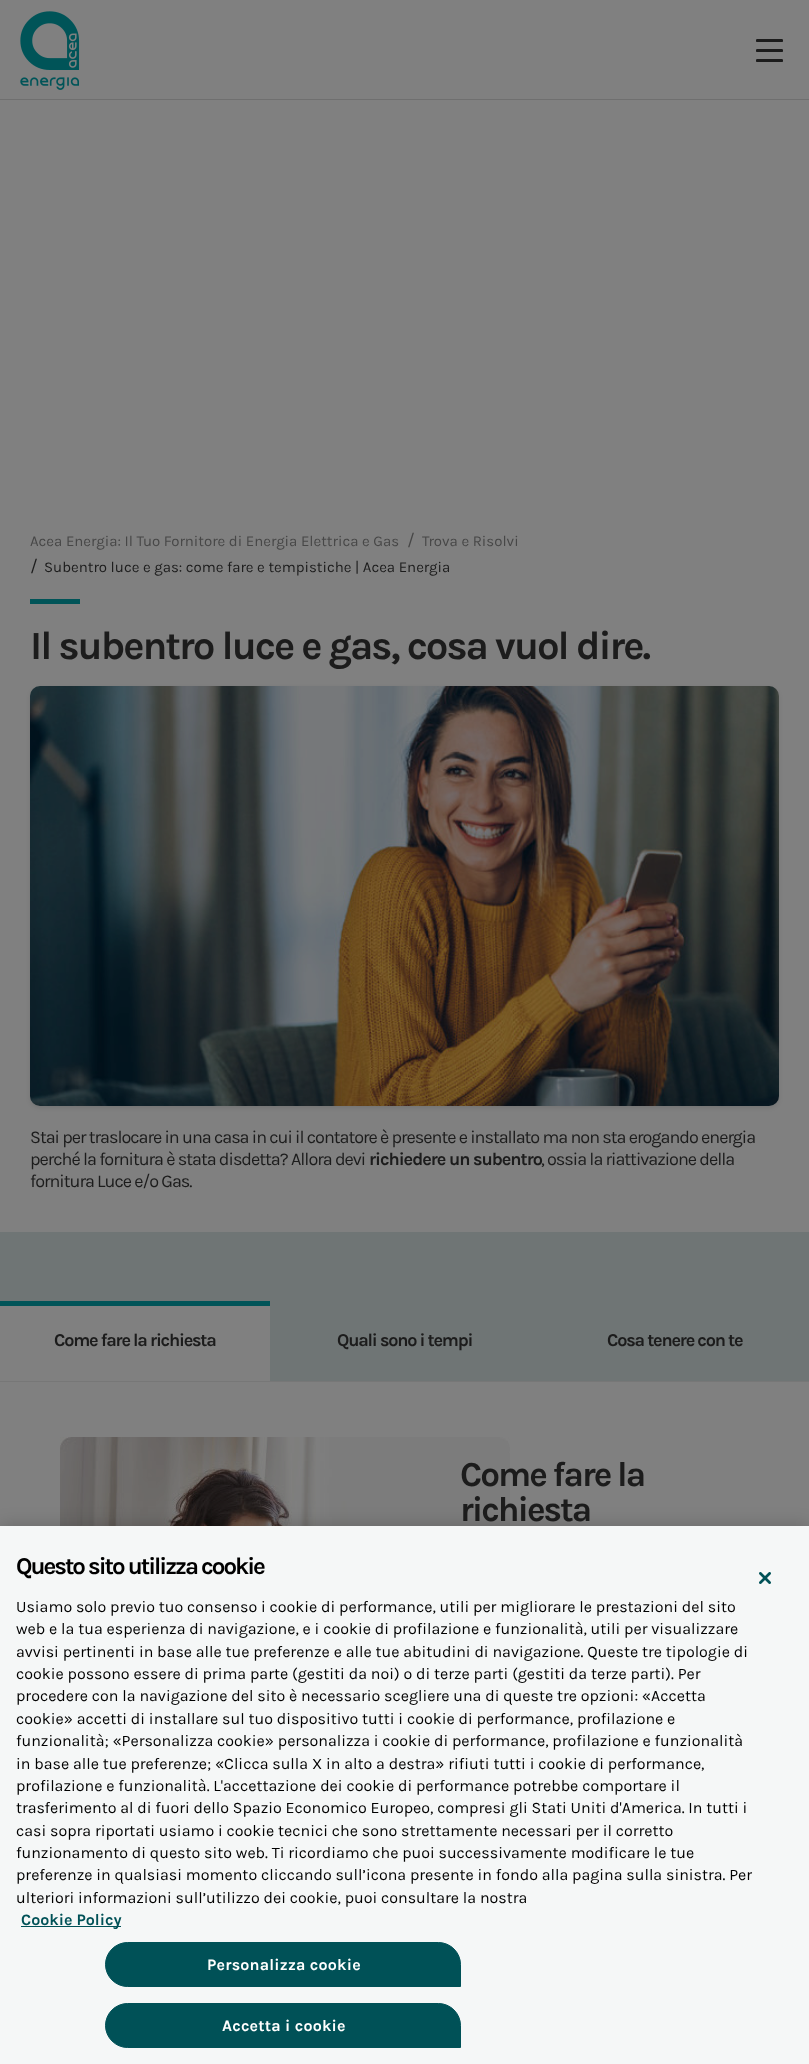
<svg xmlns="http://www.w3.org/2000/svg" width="809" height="2064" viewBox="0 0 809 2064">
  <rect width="100%" height="100%" fill="#808080"/>
  <path d="M0 99h809v1H0z" fill="#6f6f6f"/>
  <image x="20" y="11" width="60" height="79" href="img/1.png"/>
  <image x="756" y="39" width="27" height="23" href="img/2.png"/>
  <path d="M30 599h50v5H30z" fill="#005458"/>
  <rect x="30" y="688" width="749" height="420" rx="10" fill="#00000017" filter="blur(2px)"/>
  <image x="30" y="686" width="749" height="420" href="img/3.png"/>
  <path d="M0 1232h809v149H0z" fill="#6f7575"/>
  <path d="M0 1306h270v75H0z" fill="#808080"/>
  <path d="M0 1301h270v5H0z" fill="#005458"/>
  <path d="M0 1381h809v1H0z" fill="#777"/>
  <image x="60" y="1437" width="450" height="89" href="img/4.png"/>
  <path d="M0 1526h809v538H0z" fill="#00000033" filter="blur(9px)"/>
  <path d="M0 1526h809v538H0z" fill="#f5f7f7"/>
  <path d="M21 1926h100v1H21z" fill="#005157"/>
  <path d="M127.5 1942.5H438.5C450.5 1942.5 460.5 1952.5 460.5 1964.5V1986.5H127.5C115.5 1986.5 105.5 1976.5 105.5 1964.5C105.5 1952.5 115.5 1942.5 127.5 1942.5Z" fill="#005157" stroke="#005157"/>
  <path d="M127.5 2003.5H438.5C450.5 2003.5 460.5 2013.5 460.5 2025.5V2047.5H127.5C115.5 2047.5 105.5 2037.5 105.5 2025.5C105.5 2013.5 115.5 2003.5 127.5 2003.5Z" fill="#005157" stroke="#005157"/>
  <image x="759" y="1572" width="12" height="12" href="img/5.png"/>
  <text x="30" y="546" font-family="Karla" font-size="15" fill="#474747">Acea Energia: Il Tuo Fornitore di Energia Elettrica e Gas</text>
  <text x="407" y="546" font-family="Karla" font-size="18" fill="#474747">/</text>
  <text x="422" y="546" font-family="Karla" font-size="15" fill="#474747">Trova e Risolvi</text>
  <text x="30" y="572" font-family="Karla" font-size="18" fill="#1c1c1c">/</text>
  <text x="44" y="572" font-family="Karla" font-size="15" fill="#1c1c1c">Subentro luce e gas: come fare e tempistiche | Acea Energia</text>
  <text x="30" y="659" font-family="Karla" font-size="40" font-weight="bold" letter-spacing="-2" fill="#1c1c1c">Il subentro luce e gas, cosa vuol dire.</text>
  <g font-family="Karla" font-size="18" letter-spacing="-1" fill="#1c1c1c">
    <text x="30" y="1143">Stai per traslocare in una casa in cui il contatore è presente e installato ma non sta erogando energia</text>
    <text x="30" y="1165">perché la fornitura è stata disdetta? Allora devi</text>
  </g>
  <text x="369" y="1165" font-family="Karla" font-size="18" font-weight="bold" letter-spacing="-1" fill="#1c1c1c">richiedere un subentro</text>
  <g font-family="Karla" font-size="18" letter-spacing="-1" fill="#1c1c1c">
    <text x="541" y="1165">, ossia la riattivazione della</text>
    <text x="30" y="1187">fornitura Luce e/o Gas.</text>
  </g>
  <g font-family="Karla" font-size="18" font-weight="bold" letter-spacing="-1.2" fill="#1c1c1c">
    <text x="54" y="1346">Come fare la richiesta</text>
    <text x="337" y="1346">Quali sono i tempi</text>
    <text x="607" y="1346">Cosa tenere con te</text>
  </g>
  <g font-family="Karla" font-size="35" font-weight="bold" letter-spacing="-2" fill="#1c1c1c">
    <text x="460" y="1486">Come fare la</text>
    <text x="460" y="1521">richiesta</text>
  </g>
  <text x="16" y="1574" font-family="Karla" font-size="24" font-weight="bold" letter-spacing="-2" fill="#000">Questo sito utilizza cookie</text>
  <g font-family="Karla" font-size="16" fill="#000">
    <text x="16" y="1612">Usiamo solo previo tuo consenso i cookie di performance, utili per migliorare le prestazioni del sito</text>
    <text x="16" y="1634">web e la tua esperienza di navigazione, e i cookie di profilazione e funzionalità, utili per visualizzare</text>
    <text x="16" y="1657">avvisi pertinenti in base alle tue preferenze e alle tue abitudini di navigazione. Queste tre tipologie di</text>
    <text x="16" y="1679">cookie possono essere di prima parte (gestiti da noi) o di terze parti (gestiti da terze parti). Per</text>
    <text x="16" y="1701">procedere con la navigazione del sito è necessario scegliere una di queste tre opzioni: «Accetta</text>
    <text x="16" y="1724">cookie» accetti di installare sul tuo dispositivo tutti i cookie di performance, profilazione e</text>
    <text x="16" y="1746">funzionalità; «Personalizza cookie» personalizza i cookie di performance, profilazione e funzionalità</text>
    <text x="16" y="1769">in base alle tue preferenze; «Clicca sulla X in alto a destra» rifiuti tutti i cookie di performance,</text>
    <text x="16" y="1791">profilazione e funzionalità. L'accettazione dei cookie di performance potrebbe comportare il</text>
    <text x="16" y="1813">trasferimento al di fuori dello Spazio Economico Europeo, compresi gli Stati Uniti d'America. In tutti i</text>
    <text x="16" y="1836">casi sopra riportati usiamo i cookie tecnici che sono strettamente necessari per il corretto</text>
    <text x="16" y="1858">funzionamento di questo sito web. Ti ricordiamo che puoi successivamente modificare le tue</text>
    <text x="16" y="1880">preferenze in qualsiasi momento cliccando sull’icona presente in fondo alla pagina sulla sinistra. Per</text>
    <text x="16" y="1903">ulteriori informazioni sull’utilizzo dei cookie, puoi consultare la nostra</text>
  </g>
  <text x="21" y="1925" font-family="Karla" font-size="16" font-weight="bold" fill="#005157">Cookie Policy</text>
  <g font-family="Karla" font-size="16" font-weight="bold" letter-spacing="0.2" fill="#fff">
    <text x="207" y="1970">Personalizza cookie</text>
    <text x="222" y="2031">Accetta i cookie</text>
  </g>
</svg>
